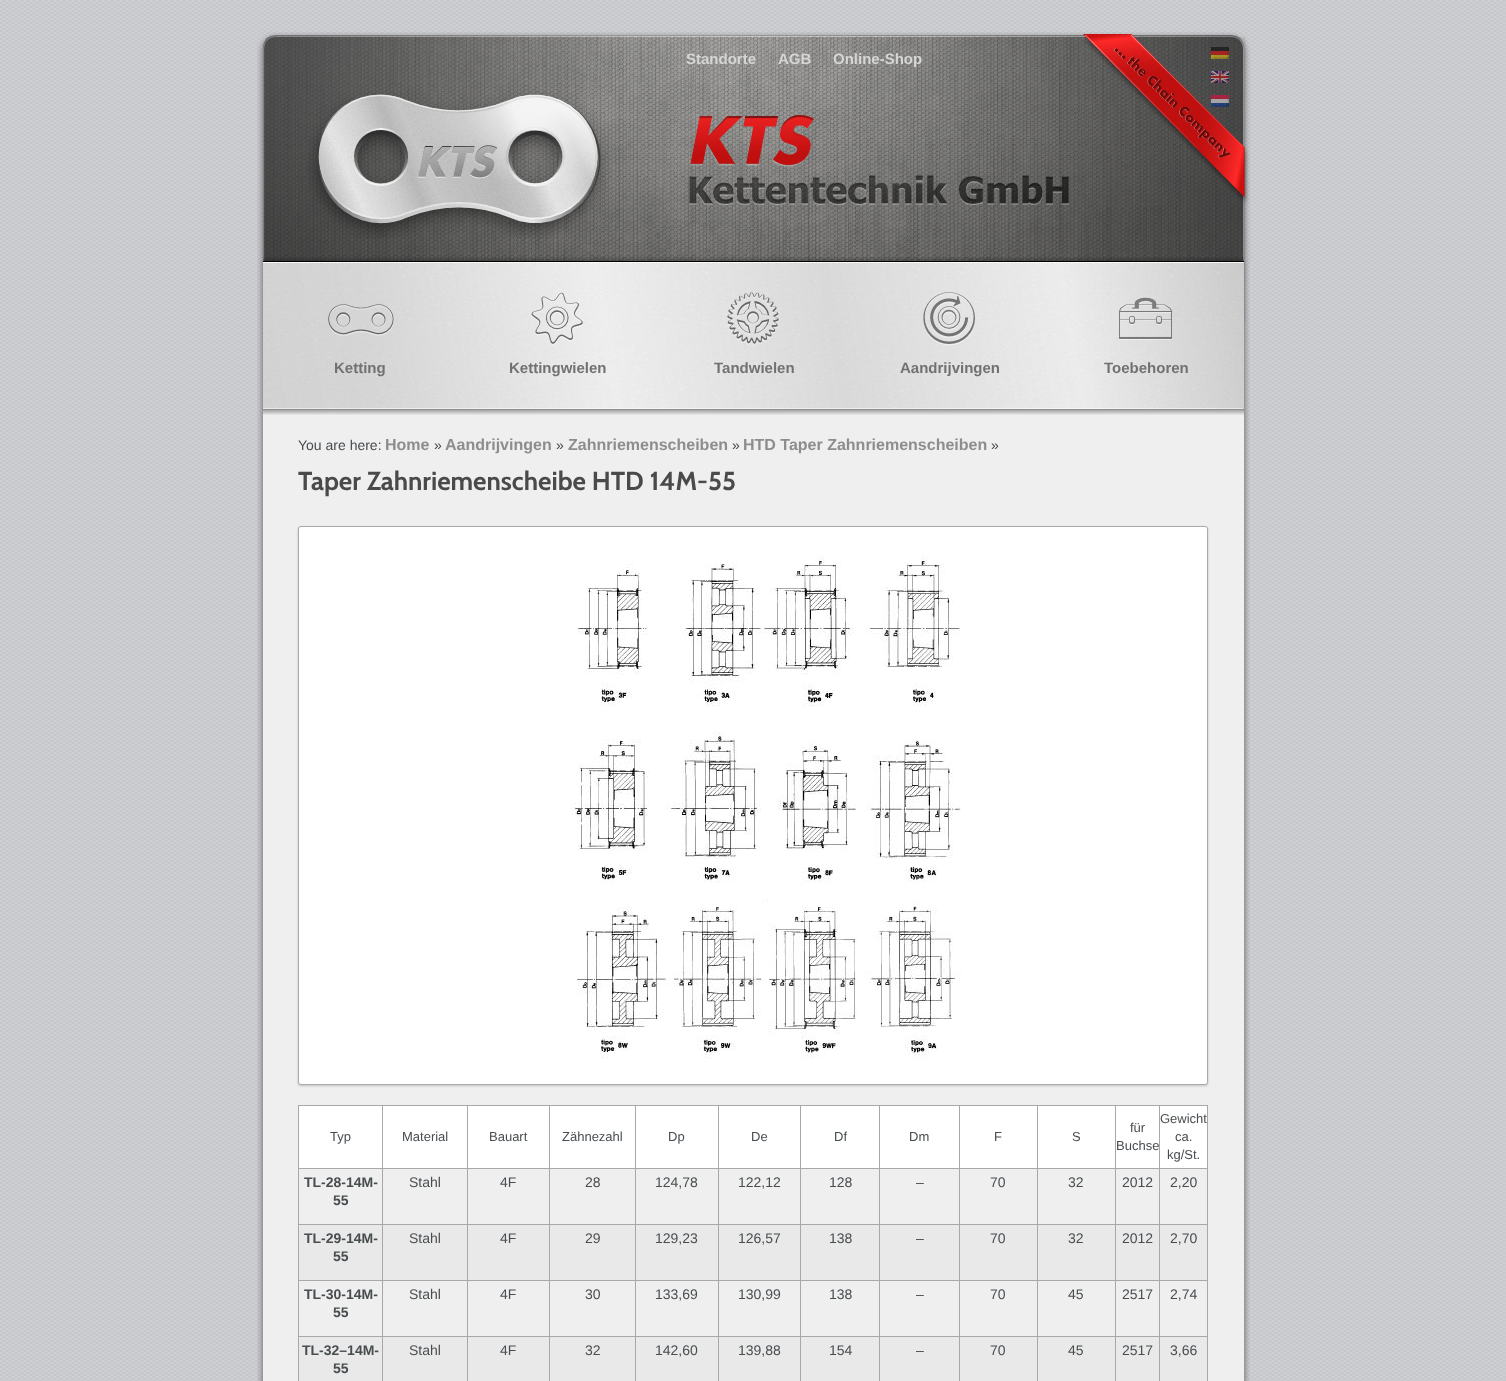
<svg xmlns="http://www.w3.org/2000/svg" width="1506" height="1381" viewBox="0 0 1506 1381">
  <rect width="100%" height="100%" fill="#fff"/>
  <image x="0" y="0" width="1506" height="1381" href="img/1.png"/>
  <image x="257" y="32" width="994" height="230" href="img/2.png"/>
  <image x="1211" y="47" width="18" height="12" href="img/3.png"/>
  <image x="1211" y="71" width="18" height="12" href="img/4.png"/>
  <image x="1211" y="95" width="18" height="12" href="img/5.png"/>
  <image x="308" y="92" width="761" height="147" href="img/6.png"/>
  <image x="257" y="409" width="993" height="972" href="img/13.png"/>
  <image x="257" y="262" width="993" height="153" href="img/7.png"/>
  <image x="328" y="304" width="66" height="32" href="img/8.png"/>
  <image x="531" y="292" width="52" height="53" href="img/9.png"/>
  <image x="727" y="292" width="52" height="53" href="img/10.png"/>
  <image x="923" y="292" width="52" height="54" href="img/11.png"/>
  <image x="1118" y="297" width="55" height="43" href="img/12.png"/>
  <rect x="298" y="527" width="910" height="559" rx="3" fill="#00000033" filter="blur(1px)"/>
  <rect x="298.5" y="526.5" width="909" height="558" rx="2.5" fill="#fff" stroke="#aaa"/>
  <image x="570" y="555" width="391" height="504" href="img/14.png"/>
  <path d="M299 1106h908v62H299z" fill="#fff"/>
  <path d="M1159 1105h49v1H1159z" fill="#a8a8a8"/>
  <path d="M1159 1168h49v1H1159z" fill="#a8a8a8"/>
  <path d="M1159 1224h49v1H1159z" fill="#a8a8a8"/>
  <path d="M299 1225h908v55H299z" fill="#e9e9e9"/>
  <path d="M1159 1280h49v1H1159z" fill="#a8a8a8"/>
  <path d="M1159 1336h49v1H1159z" fill="#a8a8a8"/>
  <path d="M299 1337h908v44H299z" fill="#e9e9e9"/>
  <path d="M1159 1336h1v45H1159z" fill="#a8a8a8"/>
  <path d="M1115 1336h45v1H1115z" fill="#a8a8a8"/>
  <path d="M1159 1280h1v57H1159z" fill="#a8a8a8"/>
  <path d="M1115 1280h45v1H1115z" fill="#a8a8a8"/>
  <path d="M1159 1224h1v57H1159z" fill="#a8a8a8"/>
  <path d="M1115 1224h45v1H1115z" fill="#a8a8a8"/>
  <path d="M1159 1168h1v57H1159z" fill="#a8a8a8"/>
  <path d="M1115 1168h45v1H1115z" fill="#a8a8a8"/>
  <path d="M1159 1105h1v64H1159z" fill="#a8a8a8"/>
  <path d="M1115 1105h45v1H1115z" fill="#a8a8a8"/>
  <path d="M1115 1336h1v45H1115z" fill="#a8a8a8"/>
  <path d="M1037 1336h79v1H1037z" fill="#a8a8a8"/>
  <path d="M1115 1280h1v57H1115z" fill="#a8a8a8"/>
  <path d="M1037 1280h79v1H1037z" fill="#a8a8a8"/>
  <path d="M1115 1224h1v57H1115z" fill="#a8a8a8"/>
  <path d="M1037 1224h79v1H1037z" fill="#a8a8a8"/>
  <path d="M1115 1168h1v57H1115z" fill="#a8a8a8"/>
  <path d="M1037 1168h79v1H1037z" fill="#a8a8a8"/>
  <path d="M1115 1105h1v64H1115z" fill="#a8a8a8"/>
  <path d="M1037 1105h79v1H1037z" fill="#a8a8a8"/>
  <path d="M1037 1336h1v45H1037z" fill="#a8a8a8"/>
  <path d="M959 1336h79v1H959z" fill="#a8a8a8"/>
  <path d="M1037 1280h1v57H1037z" fill="#a8a8a8"/>
  <path d="M959 1280h79v1H959z" fill="#a8a8a8"/>
  <path d="M1037 1224h1v57H1037z" fill="#a8a8a8"/>
  <path d="M959 1224h79v1H959z" fill="#a8a8a8"/>
  <path d="M1037 1168h1v57H1037z" fill="#a8a8a8"/>
  <path d="M959 1168h79v1H959z" fill="#a8a8a8"/>
  <path d="M1037 1105h1v64H1037z" fill="#a8a8a8"/>
  <path d="M959 1105h79v1H959z" fill="#a8a8a8"/>
  <path d="M959 1336h1v45H959z" fill="#a8a8a8"/>
  <path d="M879 1336h81v1H879z" fill="#a8a8a8"/>
  <path d="M959 1280h1v57H959z" fill="#a8a8a8"/>
  <path d="M879 1280h81v1H879z" fill="#a8a8a8"/>
  <path d="M959 1224h1v57H959z" fill="#a8a8a8"/>
  <path d="M879 1224h81v1H879z" fill="#a8a8a8"/>
  <path d="M959 1168h1v57H959z" fill="#a8a8a8"/>
  <path d="M879 1168h81v1H879z" fill="#a8a8a8"/>
  <path d="M959 1105h1v64H959z" fill="#a8a8a8"/>
  <path d="M879 1105h81v1H879z" fill="#a8a8a8"/>
  <path d="M879 1336h1v45H879z" fill="#a8a8a8"/>
  <path d="M800 1336h80v1H800z" fill="#a8a8a8"/>
  <path d="M879 1280h1v57H879z" fill="#a8a8a8"/>
  <path d="M800 1280h80v1H800z" fill="#a8a8a8"/>
  <path d="M879 1224h1v57H879z" fill="#a8a8a8"/>
  <path d="M800 1224h80v1H800z" fill="#a8a8a8"/>
  <path d="M879 1168h1v57H879z" fill="#a8a8a8"/>
  <path d="M800 1168h80v1H800z" fill="#a8a8a8"/>
  <path d="M879 1105h1v64H879z" fill="#a8a8a8"/>
  <path d="M800 1105h80v1H800z" fill="#a8a8a8"/>
  <path d="M800 1336h1v45H800z" fill="#a8a8a8"/>
  <path d="M718 1336h83v1H718z" fill="#a8a8a8"/>
  <path d="M800 1280h1v57H800z" fill="#a8a8a8"/>
  <path d="M718 1280h83v1H718z" fill="#a8a8a8"/>
  <path d="M800 1224h1v57H800z" fill="#a8a8a8"/>
  <path d="M718 1224h83v1H718z" fill="#a8a8a8"/>
  <path d="M800 1168h1v57H800z" fill="#a8a8a8"/>
  <path d="M718 1168h83v1H718z" fill="#a8a8a8"/>
  <path d="M800 1105h1v64H800z" fill="#a8a8a8"/>
  <path d="M718 1105h83v1H718z" fill="#a8a8a8"/>
  <path d="M718 1336h1v45H718z" fill="#a8a8a8"/>
  <path d="M635 1336h84v1H635z" fill="#a8a8a8"/>
  <path d="M718 1280h1v57H718z" fill="#a8a8a8"/>
  <path d="M635 1280h84v1H635z" fill="#a8a8a8"/>
  <path d="M718 1224h1v57H718z" fill="#a8a8a8"/>
  <path d="M635 1224h84v1H635z" fill="#a8a8a8"/>
  <path d="M718 1168h1v57H718z" fill="#a8a8a8"/>
  <path d="M635 1168h84v1H635z" fill="#a8a8a8"/>
  <path d="M718 1105h1v64H718z" fill="#a8a8a8"/>
  <path d="M635 1105h84v1H635z" fill="#a8a8a8"/>
  <path d="M635 1336h1v45H635z" fill="#a8a8a8"/>
  <path d="M549 1336h87v1H549z" fill="#a8a8a8"/>
  <path d="M635 1280h1v57H635z" fill="#a8a8a8"/>
  <path d="M549 1280h87v1H549z" fill="#a8a8a8"/>
  <path d="M635 1224h1v57H635z" fill="#a8a8a8"/>
  <path d="M549 1224h87v1H549z" fill="#a8a8a8"/>
  <path d="M635 1168h1v57H635z" fill="#a8a8a8"/>
  <path d="M549 1168h87v1H549z" fill="#a8a8a8"/>
  <path d="M635 1105h1v64H635z" fill="#a8a8a8"/>
  <path d="M549 1105h87v1H549z" fill="#a8a8a8"/>
  <path d="M549 1336h1v45H549z" fill="#a8a8a8"/>
  <path d="M467 1336h83v1H467z" fill="#a8a8a8"/>
  <path d="M549 1280h1v57H549z" fill="#a8a8a8"/>
  <path d="M467 1280h83v1H467z" fill="#a8a8a8"/>
  <path d="M549 1224h1v57H549z" fill="#a8a8a8"/>
  <path d="M467 1224h83v1H467z" fill="#a8a8a8"/>
  <path d="M549 1168h1v57H549z" fill="#a8a8a8"/>
  <path d="M467 1168h83v1H467z" fill="#a8a8a8"/>
  <path d="M549 1105h1v64H549z" fill="#a8a8a8"/>
  <path d="M467 1105h83v1H467z" fill="#a8a8a8"/>
  <path d="M467 1336h1v45H467z" fill="#a8a8a8"/>
  <path d="M382 1336h86v1H382z" fill="#a8a8a8"/>
  <path d="M467 1280h1v57H467z" fill="#a8a8a8"/>
  <path d="M382 1280h86v1H382z" fill="#a8a8a8"/>
  <path d="M467 1224h1v57H467z" fill="#a8a8a8"/>
  <path d="M382 1224h86v1H382z" fill="#a8a8a8"/>
  <path d="M467 1168h1v57H467z" fill="#a8a8a8"/>
  <path d="M382 1168h86v1H382z" fill="#a8a8a8"/>
  <path d="M467 1105h1v64H467z" fill="#a8a8a8"/>
  <path d="M382 1105h86v1H382z" fill="#a8a8a8"/>
  <path d="M382 1336h1v45H382z" fill="#a8a8a8"/>
  <path d="M298 1336h85v1H298z" fill="#a8a8a8"/>
  <path d="M382 1280h1v57H382z" fill="#a8a8a8"/>
  <path d="M298 1280h85v1H298z" fill="#a8a8a8"/>
  <path d="M382 1224h1v57H382z" fill="#a8a8a8"/>
  <path d="M298 1224h85v1H298z" fill="#a8a8a8"/>
  <path d="M382 1168h1v57H382z" fill="#a8a8a8"/>
  <path d="M298 1168h85v1H298z" fill="#a8a8a8"/>
  <path d="M382 1105h1v64H382z" fill="#a8a8a8"/>
  <path d="M298 1105h85v1H298z" fill="#a8a8a8"/>
  <path d="M298 1336h1v45H298z" fill="#a8a8a8"/>
  <path d="M298 1280h1v57H298z" fill="#a8a8a8"/>
  <path d="M298 1224h1v57H298z" fill="#a8a8a8"/>
  <path d="M298 1168h1v57H298z" fill="#a8a8a8"/>
  <path d="M298 1105h1v64H298z" fill="#a8a8a8"/>
  <path d="M1207 1336h1v45H1207z" fill="#a8a8a8"/>
  <path d="M1207 1280h1v57H1207z" fill="#a8a8a8"/>
  <path d="M1207 1224h1v57H1207z" fill="#a8a8a8"/>
  <path d="M1207 1168h1v57H1207z" fill="#a8a8a8"/>
  <path d="M1207 1105h1v64H1207z" fill="#a8a8a8"/>
  <g font-family="Liberation Sans" font-size="15" font-weight="bold" fill="#d6d6d6">
    <text x="686" y="64">Standorte</text>
    <text x="778" y="64">AGB</text>
    <text x="833" y="64">Online-Shop</text>
  </g>
  <g font-family="Liberation Sans" font-size="15" font-weight="bold" fill="#717171">
    <text x="334" y="373">Ketting</text>
    <text x="509" y="373">Kettingwielen</text>
    <text x="714" y="373">Tandwielen</text>
    <text x="900" y="373">Aandrijvingen</text>
    <text x="1104" y="373">Toebehoren</text>
  </g>
  <text x="298" y="450" font-family="Liberation Sans" font-size="14" fill="#484d50">You are here:</text>
  <text x="385" y="450" font-family="Liberation Sans" font-size="16" font-weight="bold" fill="#8d8d8d">Home</text>
  <text x="434" y="450" font-family="Liberation Sans" font-size="14" fill="#484d50">»</text>
  <text x="445" y="450" font-family="Liberation Sans" font-size="16" font-weight="bold" fill="#8d8d8d">Aandrijvingen</text>
  <text x="556" y="450" font-family="Liberation Sans" font-size="14" fill="#484d50">»</text>
  <text x="568" y="450" font-family="Liberation Sans" font-size="16" font-weight="bold" fill="#8d8d8d">Zahnriemenscheiben</text>
  <text x="732" y="450" font-family="Liberation Sans" font-size="14" fill="#484d50">»</text>
  <text x="743" y="450" font-family="Liberation Sans" font-size="16" font-weight="bold" fill="#8d8d8d">HTD Taper Zahnriemenscheiben</text>
  <text x="991" y="450" font-family="Liberation Sans" font-size="14" fill="#484d50">»</text>
  <text x="298" y="490" font-family="Cabin" font-size="26" font-weight="bold" fill="#4a4a4a">Taper Zahnriemenscheibe HTD 14M-55</text>
  <g font-family="Liberation Sans" font-size="13" fill="#484d50">
    <text x="330" y="1141">Typ</text>
    <text x="402" y="1141">Material</text>
    <text x="489" y="1141">Bauart</text>
    <text x="562" y="1141">Zähnezahl</text>
    <text x="668" y="1141">Dp</text>
    <text x="751" y="1141">De</text>
    <text x="834" y="1141">Df</text>
    <text x="909" y="1141">Dm</text>
    <text x="994" y="1141">F</text>
    <text x="1072" y="1141">S</text>
    <text x="1130" y="1132">für</text>
    <text x="1116" y="1150">Buchse</text>
    <text x="1160" y="1123">Gewicht</text>
    <text x="1175" y="1141">ca.</text>
    <text x="1167" y="1159">kg/St.</text>
  </g>
  <g font-family="Liberation Sans" font-size="14" font-weight="bold" fill="#484d50">
    <text x="304" y="1187">TL-28-14M-</text>
    <text x="333" y="1205">55</text>
  </g>
  <g font-family="Liberation Sans" font-size="14" fill="#484d50">
    <text x="409" y="1187">Stahl</text>
    <text x="500" y="1187">4F</text>
    <text x="585" y="1187">28</text>
    <text x="655" y="1187">124,78</text>
    <text x="738" y="1187">122,12</text>
    <text x="829" y="1187">128</text>
    <text x="916" y="1187">–</text>
    <text x="990" y="1187">70</text>
    <text x="1068" y="1187">32</text>
    <text x="1122" y="1187">2012</text>
    <text x="1170" y="1187">2,20</text>
  </g>
  <g font-family="Liberation Sans" font-size="14" font-weight="bold" fill="#484d50">
    <text x="304" y="1243">TL-29-14M-</text>
    <text x="333" y="1261">55</text>
  </g>
  <g font-family="Liberation Sans" font-size="14" fill="#484d50">
    <text x="409" y="1243">Stahl</text>
    <text x="500" y="1243">4F</text>
    <text x="585" y="1243">29</text>
    <text x="655" y="1243">129,23</text>
    <text x="738" y="1243">126,57</text>
    <text x="829" y="1243">138</text>
    <text x="916" y="1243">–</text>
    <text x="990" y="1243">70</text>
    <text x="1068" y="1243">32</text>
    <text x="1122" y="1243">2012</text>
    <text x="1170" y="1243">2,70</text>
  </g>
  <g font-family="Liberation Sans" font-size="14" font-weight="bold" fill="#484d50">
    <text x="304" y="1299">TL-30-14M-</text>
    <text x="333" y="1317">55</text>
  </g>
  <g font-family="Liberation Sans" font-size="14" fill="#484d50">
    <text x="409" y="1299">Stahl</text>
    <text x="500" y="1299">4F</text>
    <text x="585" y="1299">30</text>
    <text x="655" y="1299">133,69</text>
    <text x="738" y="1299">130,99</text>
    <text x="829" y="1299">138</text>
    <text x="916" y="1299">–</text>
    <text x="990" y="1299">70</text>
    <text x="1068" y="1299">45</text>
    <text x="1122" y="1299">2517</text>
    <text x="1170" y="1299">2,74</text>
  </g>
  <g font-family="Liberation Sans" font-size="14" font-weight="bold" fill="#484d50">
    <text x="302" y="1355">TL-32–14M-</text>
    <text x="333" y="1373">55</text>
  </g>
  <g font-family="Liberation Sans" font-size="14" fill="#484d50">
    <text x="409" y="1355">Stahl</text>
    <text x="500" y="1355">4F</text>
    <text x="585" y="1355">32</text>
    <text x="655" y="1355">142,60</text>
    <text x="738" y="1355">139,88</text>
    <text x="829" y="1355">154</text>
    <text x="916" y="1355">–</text>
    <text x="990" y="1355">70</text>
    <text x="1068" y="1355">45</text>
    <text x="1122" y="1355">2517</text>
    <text x="1170" y="1355">3,66</text>
  </g>
</svg>
